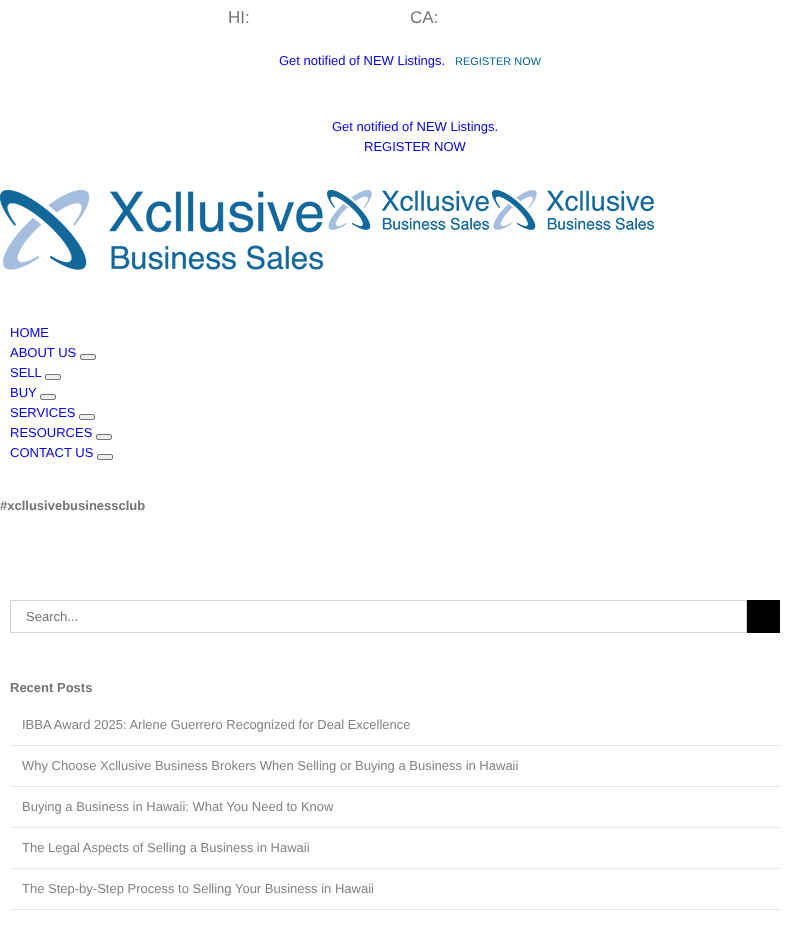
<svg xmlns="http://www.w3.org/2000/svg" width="790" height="936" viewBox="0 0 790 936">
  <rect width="100%" height="100%" fill="#fff"/>
  <image x="0" y="190" width="323" height="80" href="img/1.png"/>
  <image x="327" y="190" width="162" height="40" href="img/2.png"/>
  <image x="492" y="190" width="162" height="40" href="img/2.png"/>
  <rect x="80.5" y="354.5" width="15" height="5" rx="1.5" fill="#efefef" stroke="#767676"/>
  <rect x="45.5" y="374.5" width="15" height="5" rx="1.5" fill="#efefef" stroke="#767676"/>
  <rect x="40.5" y="394.5" width="15" height="5" rx="1.5" fill="#efefef" stroke="#767676"/>
  <rect x="79.5" y="414.5" width="15" height="5" rx="1.5" fill="#efefef" stroke="#767676"/>
  <rect x="96.5" y="434.5" width="15" height="5" rx="1.5" fill="#efefef" stroke="#767676"/>
  <rect x="97.5" y="454.5" width="15" height="5" rx="1.5" fill="#efefef" stroke="#767676"/>
  <path d="M10.5 600.5h736v32H10.5z" fill="none" stroke="#d2d2d2"/>
  <path d="M747 600h33v33H747z" fill="#000"/>
  <path d="M10 745h770v1H10z" fill="#e7e6e6"/>
  <path d="M10 786h770v1H10z" fill="#e7e6e6"/>
  <path d="M10 827h770v1H10z" fill="#e7e6e6"/>
  <path d="M10 868h770v1H10z" fill="#e7e6e6"/>
  <path d="M10 909h770v1H10z" fill="#e7e6e6"/>
  <g font-family="Liberation Sans" font-size="17" fill="#747474">
    <text x="228" y="23">HI:</text>
    <text x="410" y="23">CA:</text>
  </g>
  <text x="279" y="65" font-family="Liberation Sans" font-size="13" fill="#00e">Get notified of NEW Listings.</text>
  <text x="455" y="65" font-family="Liberation Sans" font-size="11" fill="#069">REGISTER NOW</text>
  <g font-family="Liberation Sans" font-size="13" fill="#00e">
    <text x="332" y="131">Get notified of NEW Listings.</text>
    <text x="364" y="151">REGISTER NOW</text>
    <text x="10" y="337">HOME</text>
    <text x="10" y="357">ABOUT US</text>
    <text x="10" y="377">SELL</text>
    <text x="10" y="397">BUY</text>
    <text x="10" y="417">SERVICES</text>
    <text x="10" y="437">RESOURCES</text>
    <text x="10" y="457">CONTACT US</text>
  </g>
  <text x="0" y="510" font-family="Liberation Sans" font-size="13" font-weight="bold" fill="#747474">#xcllusivebusinessclub</text>
  <text x="26" y="621" font-family="Liberation Sans" font-size="13" fill="#747474">Search...</text>
  <text x="10" y="692" font-family="Liberation Sans" font-size="13" font-weight="bold" fill="#747474">Recent Posts</text>
  <g font-family="Liberation Sans" font-size="13" fill="#838383">
    <text x="22" y="729">IBBA Award 2025: Arlene Guerrero Recognized for Deal Excellence</text>
    <text x="22" y="770">Why Choose Xcllusive Business Brokers When Selling or Buying a Business in Hawaii</text>
    <text x="22" y="811">Buying a Business in Hawaii: What You Need to Know</text>
    <text x="22" y="852">The Legal Aspects of Selling a Business in Hawaii</text>
    <text x="22" y="893">The Step-by-Step Process to Selling Your Business in Hawaii</text>
  </g>
</svg>
